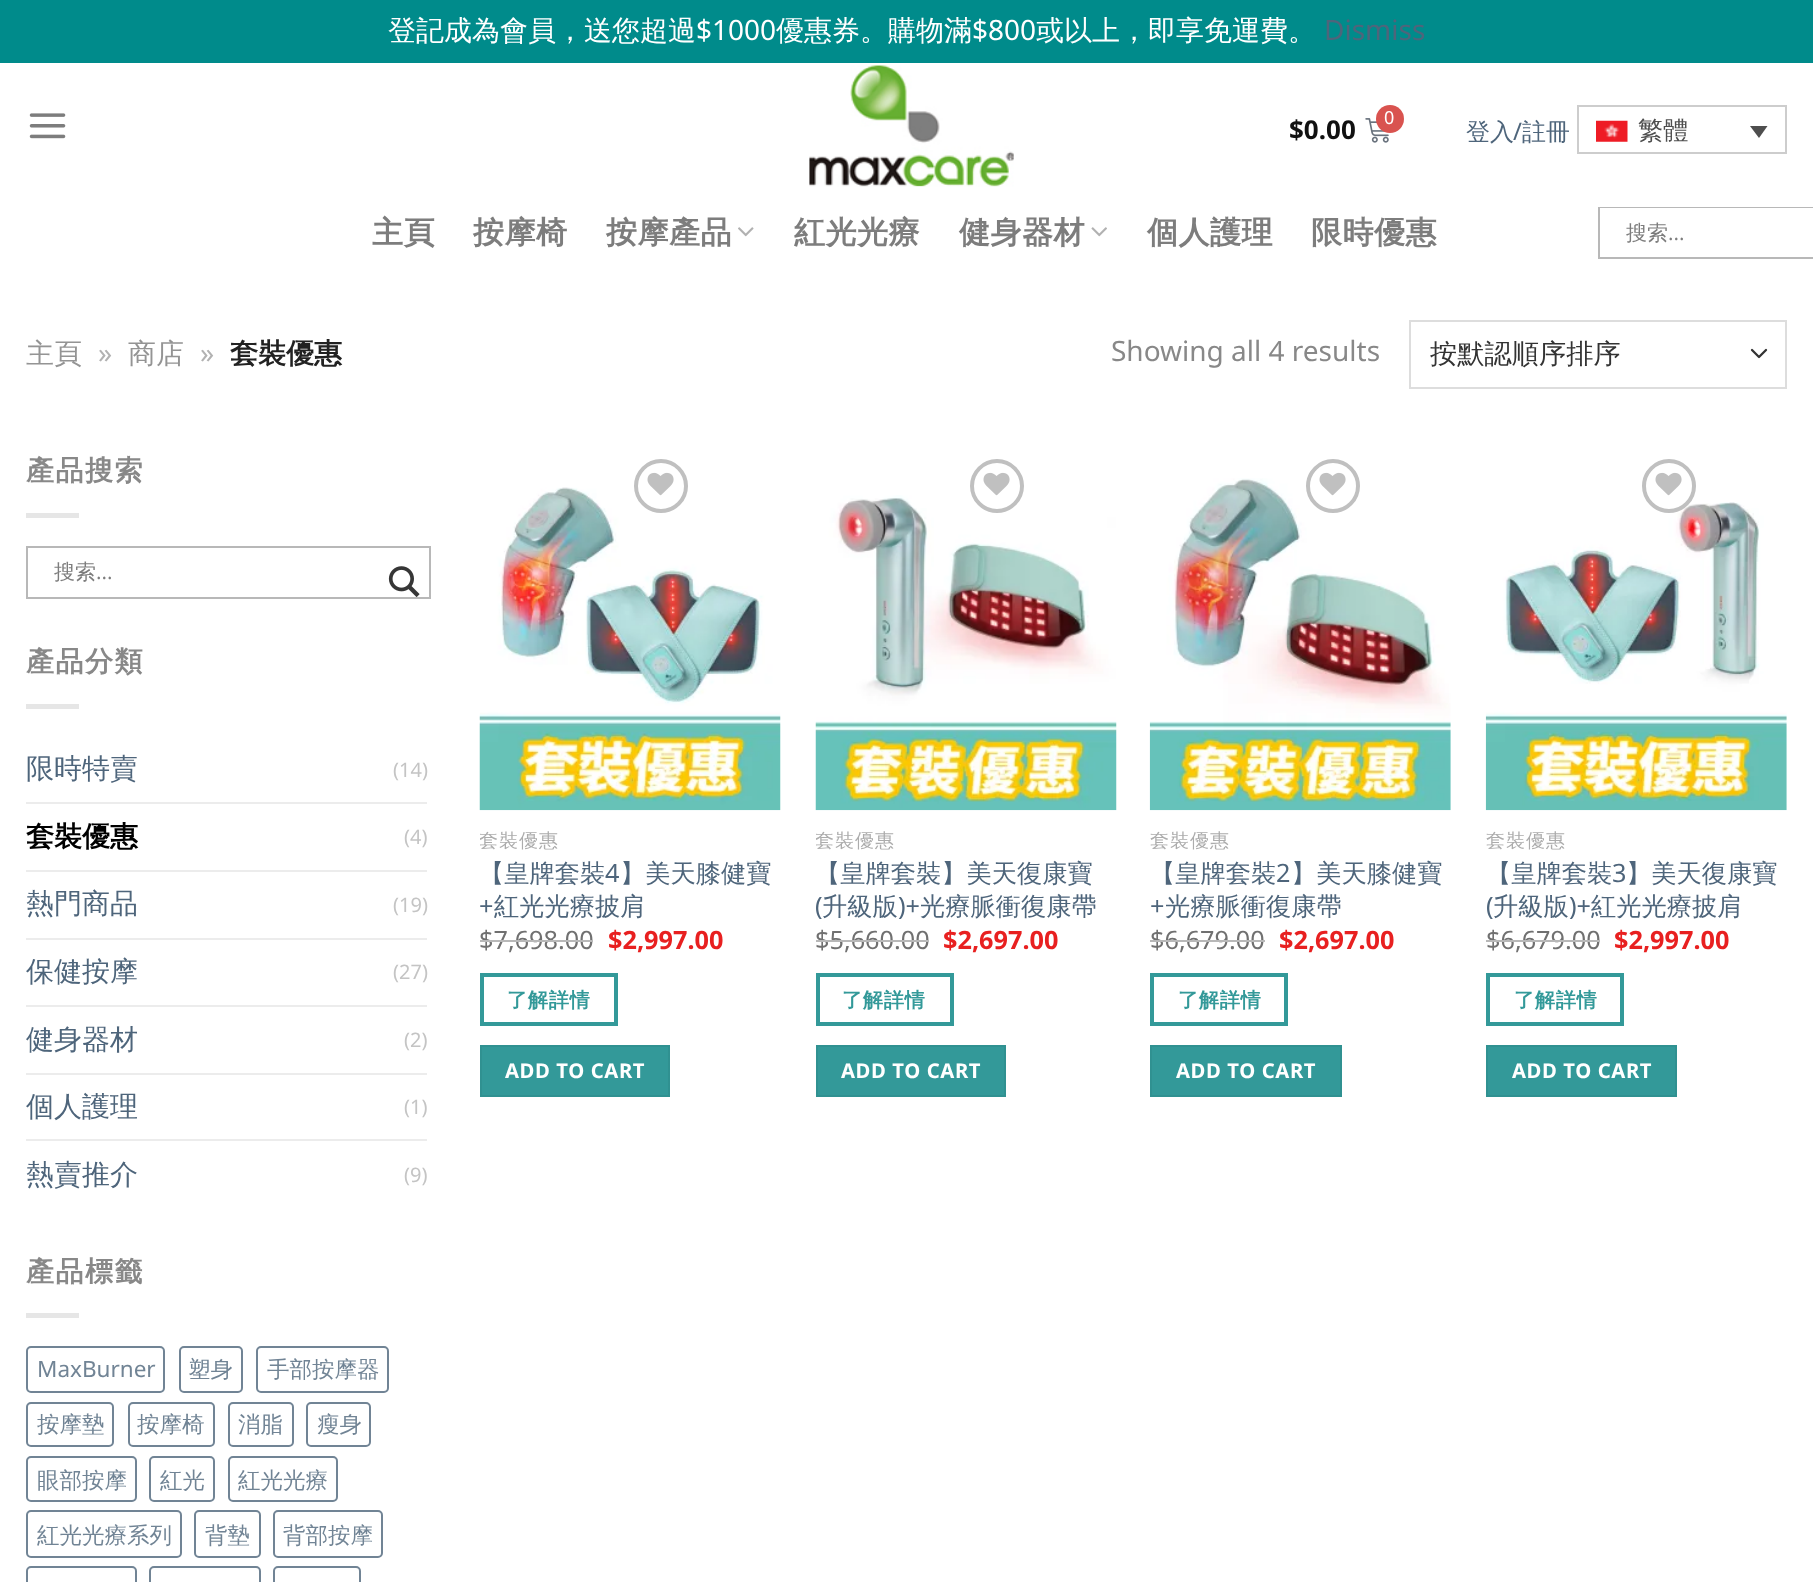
<svg xmlns="http://www.w3.org/2000/svg" width="1813" height="1582" viewBox="0 0 1813 1582">
  <defs>
    <clipPath id="clip1"><path d="M480 830h301v22H480z"/></clipPath>
    <clipPath id="clip2"><path d="M816 830h301v22H816z"/></clipPath>
  </defs>
  <rect width="100%" height="100%" fill="#fff"/>
  <path d="M0 0h1813v63H0z" fill="#008b8b"/>
  <image x="29" y="113" width="37" height="26" href="img/1.png"/>
  <image x="809" y="65" width="205" height="122" href="img/2.png"/>
  <image x="1365" y="118" width="24" height="25" href="img/3.png"/>
  <circle cx="1390" cy="119" r="14" fill="#d9534f"/>
  <path d="M1578 106h208v47H1578z" fill="none" stroke="#cdcdcd" stroke-width="2"/>
  <image x="1596" y="120" width="32" height="22" href="img/4.png"/>
  <path d="M1750 126H1767.5L1759 138Z" fill="#4e4e4e"/>
  <image x="738" y="227" width="16" height="10" href="img/5.png"/>
  <image x="1091" y="227" width="16" height="10" href="img/6.png"/>
  <path d="M1599 208h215v50H1599z" fill="none" stroke="#b8b8b8" stroke-width="2"/>
  <path d="M1600 208h213v1H1600z" fill="#fff"/>
  <path d="M1752 350L1759 357L1766 350" fill="none" stroke="#333" stroke-width="2.3" stroke-linecap="round" stroke-linejoin="round"/>
  <path d="M1410 321h376v67H1410z" fill="none" stroke="#ddd" stroke-width="2"/>
  <path d="M26 513h53v5H26z" fill="#e6e6e6"/>
  <path d="M27 547h403v51H27z" fill="none" stroke="#b8b8b8" stroke-width="2"/>
  <image x="388" y="566" width="32" height="31" href="img/7.png"/>
  <path d="M26 704h53v5H26z" fill="#e6e6e6"/>
  <path d="M26 802h401v2H26z" fill="#ececec"/>
  <path d="M26 870h401v2H26z" fill="#ececec"/>
  <path d="M26 938h401v2H26z" fill="#ececec"/>
  <path d="M26 1005h401v2H26z" fill="#ececec"/>
  <path d="M26 1073h401v2H26z" fill="#ececec"/>
  <path d="M26 1139h401v2H26z" fill="#ececec"/>
  <path d="M26 1313h53v5H26z" fill="#e6e6e6"/>
  <rect x="27" y="1347" width="137" height="45" rx="4" fill="none" stroke="#718495" stroke-width="2"/>
  <rect x="180" y="1347" width="62" height="45" rx="4" fill="none" stroke="#718495" stroke-width="2"/>
  <rect x="257" y="1347" width="131" height="45" rx="4" fill="none" stroke="#718495" stroke-width="2"/>
  <rect x="27" y="1403" width="86" height="43" rx="4" fill="none" stroke="#718495" stroke-width="2"/>
  <rect x="129" y="1403" width="85" height="43" rx="4" fill="none" stroke="#718495" stroke-width="2"/>
  <rect x="229" y="1403" width="64" height="43" rx="4" fill="none" stroke="#718495" stroke-width="2"/>
  <rect x="307" y="1403" width="63" height="43" rx="4" fill="none" stroke="#718495" stroke-width="2"/>
  <rect x="27" y="1457" width="109" height="44" rx="4" fill="none" stroke="#718495" stroke-width="2"/>
  <rect x="150" y="1457" width="64" height="44" rx="4" fill="none" stroke="#718495" stroke-width="2"/>
  <rect x="229" y="1457" width="108" height="44" rx="4" fill="none" stroke="#718495" stroke-width="2"/>
  <rect x="27" y="1511" width="154" height="46" rx="4" fill="none" stroke="#718495" stroke-width="2"/>
  <rect x="195" y="1511" width="65" height="46" rx="4" fill="none" stroke="#718495" stroke-width="2"/>
  <rect x="274" y="1511" width="108" height="46" rx="4" fill="none" stroke="#718495" stroke-width="2"/>
  <rect x="27" y="1567" width="109" height="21" rx="4" fill="none" stroke="#718495" stroke-width="2"/>
  <rect x="150" y="1567" width="110" height="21" rx="4" fill="none" stroke="#718495" stroke-width="2"/>
  <rect x="274" y="1567" width="86" height="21" rx="4" fill="none" stroke="#718495" stroke-width="2"/>
  <image x="479" y="487" width="302" height="324" href="img/9.png"/>
  <circle cx="661" cy="486" r="25" fill="none" stroke="#c0c0c0" stroke-width="4"/>
  <image x="647" y="472" width="27" height="24" href="img/8.png"/>
  <path d="M482 975h134v49H482z" fill="none" stroke="#399" stroke-width="4"/>
  <path d="M481 1046h188v50H481z" fill="#399" stroke="#309191" stroke-width="2"/>
  <image x="815" y="495" width="302" height="316" href="img/10.png"/>
  <circle cx="997" cy="486" r="25" fill="none" stroke="#c0c0c0" stroke-width="4"/>
  <image x="983" y="472" width="27" height="24" href="img/8.png"/>
  <path d="M818 975h134v49H818z" fill="none" stroke="#399" stroke-width="4"/>
  <path d="M817 1046h188v50H817z" fill="#399" stroke="#309191" stroke-width="2"/>
  <image x="1149" y="478" width="302" height="333" href="img/11.png"/>
  <circle cx="1333" cy="486" r="25" fill="none" stroke="#c0c0c0" stroke-width="4"/>
  <image x="1319" y="472" width="27" height="24" href="img/8.png"/>
  <path d="M1152 975h134v49H1152z" fill="none" stroke="#399" stroke-width="4"/>
  <path d="M1151 1046h190v50H1151z" fill="#399" stroke="#309191" stroke-width="2"/>
  <image x="1485" y="502" width="302" height="309" href="img/12.png"/>
  <circle cx="1669" cy="486" r="25" fill="none" stroke="#c0c0c0" stroke-width="4"/>
  <image x="1655" y="472" width="27" height="24" href="img/8.png"/>
  <path d="M1488 975h134v49H1488z" fill="none" stroke="#399" stroke-width="4"/>
  <path d="M1487 1046h189v50H1487z" fill="#399" stroke="#309191" stroke-width="2"/>
  <text x="388" y="40" font-family="WenQuanYi Zen Hei" font-size="28" font-weight="500" fill="#fff">登記成為會員，送您超過</text>
  <text x="696" y="40" font-family="Noto Sans" font-size="28" fill="#fff">$1000</text>
  <text x="776" y="40" font-family="WenQuanYi Zen Hei" font-size="28" font-weight="500" fill="#fff">優惠券。購物滿</text>
  <text x="972" y="40" font-family="Noto Sans" font-size="28" fill="#fff">$800</text>
  <text x="1036" y="40" font-family="WenQuanYi Zen Hei" font-size="28" font-weight="500" fill="#fff">或以上，即享免運費。</text>
  <text x="1324" y="40" font-family="Noto Sans" font-size="28" fill="#4e657b">Dismiss</text>
  <text x="1289" y="139" font-family="Noto Sans" font-size="26" font-weight="bold" fill="#111">$0.00</text>
  <text x="1384" y="124" font-family="Noto Sans" font-size="18" fill="#fff">0</text>
  <text x="1466" y="140" font-family="WenQuanYi Zen Hei" font-size="24" font-weight="500" fill="#4e657b">登入</text>
  <text x="1513" y="140" font-family="Noto Sans" font-size="24" fill="#4e657b">/</text>
  <text x="1522" y="140" font-family="WenQuanYi Zen Hei" font-size="24" font-weight="500" fill="#4e657b">註冊</text>
  <text x="1638" y="139" font-family="WenQuanYi Zen Hei" font-size="25.25" font-weight="500" fill="#4e4e4e">繁體</text>
  <g font-family="WenQuanYi Zen Hei" font-size="31" font-weight="bold" letter-spacing="0.5" fill="#7d7d7d">
    <text x="372" y="243">主頁</text>
    <text x="473" y="243">按摩椅</text>
    <text x="606" y="243">按摩產品</text>
    <text x="794" y="243">紅光光療</text>
    <text x="959" y="243">健身器材</text>
    <text x="1147" y="243">個人護理</text>
    <text x="1311" y="243">限時優惠</text>
  </g>
  <text x="1626" y="240" font-family="WenQuanYi Zen Hei" font-size="21" font-weight="500" fill="#7d7d7d">搜索</text>
  <text x="1668" y="240" font-family="Open Sans" font-size="21" fill="#7d7d7d">...</text>
  <text x="26" y="363" font-family="WenQuanYi Zen Hei" font-size="28" font-weight="500" fill="#949494">主頁</text>
  <text x="98" y="363" font-family="Noto Sans" font-size="28" fill="#b2b2b2">»</text>
  <text x="128" y="363" font-family="WenQuanYi Zen Hei" font-size="28" font-weight="500" fill="#949494">商店</text>
  <text x="200" y="363" font-family="Noto Sans" font-size="28" fill="#b2b2b2">»</text>
  <text x="230" y="363" font-family="WenQuanYi Zen Hei" font-size="28" font-weight="bold" fill="#222">套裝優惠</text>
  <text x="1111" y="361" font-family="Noto Sans" font-size="28" fill="#888">Showing all 4 results</text>
  <text x="1430" y="363" font-family="WenQuanYi Zen Hei" font-size="27.25" font-weight="500" fill="#333">按默認順序排序</text>
  <text x="26" y="480" font-family="WenQuanYi Zen Hei" font-size="28" font-weight="bold" letter-spacing="1.5" fill="#888">產品搜索</text>
  <text x="54" y="579" font-family="WenQuanYi Zen Hei" font-size="21" font-weight="500" fill="#7d7d7d">搜索</text>
  <text x="96" y="579" font-family="Open Sans" font-size="21" fill="#7d7d7d">...</text>
  <text x="26" y="671" font-family="WenQuanYi Zen Hei" font-size="28" font-weight="bold" letter-spacing="1.5" fill="#888">產品分類</text>
  <text x="26" y="778" font-family="WenQuanYi Zen Hei" font-size="28" font-weight="500" fill="#4e657b">限時特賣</text>
  <text x="393" y="777" font-family="Noto Sans" font-size="20" fill="#c4c4c4">(14)</text>
  <text x="26" y="846" font-family="WenQuanYi Zen Hei" font-size="28" font-weight="bold" fill="#000">套裝優惠</text>
  <text x="404" y="844" font-family="Noto Sans" font-size="20" fill="#c4c4c4">(4)</text>
  <text x="26" y="913" font-family="WenQuanYi Zen Hei" font-size="28" font-weight="500" fill="#4e657b">熱門商品</text>
  <text x="393" y="912" font-family="Noto Sans" font-size="20" fill="#c4c4c4">(19)</text>
  <text x="26" y="981" font-family="WenQuanYi Zen Hei" font-size="28" font-weight="500" fill="#4e657b">保健按摩</text>
  <text x="393" y="979" font-family="Noto Sans" font-size="20" fill="#c4c4c4">(27)</text>
  <text x="26" y="1049" font-family="WenQuanYi Zen Hei" font-size="28" font-weight="500" fill="#4e657b">健身器材</text>
  <text x="404" y="1047" font-family="Noto Sans" font-size="20" fill="#c4c4c4">(2)</text>
  <text x="26" y="1116" font-family="WenQuanYi Zen Hei" font-size="28" font-weight="500" fill="#4e657b">個人護理</text>
  <text x="404" y="1114" font-family="Noto Sans" font-size="20" fill="#c4c4c4">(1)</text>
  <text x="26" y="1184" font-family="WenQuanYi Zen Hei" font-size="28" font-weight="500" fill="#4e657b">熱賣推介</text>
  <text x="404" y="1182" font-family="Noto Sans" font-size="20" fill="#c4c4c4">(9)</text>
  <text x="26" y="1281" font-family="WenQuanYi Zen Hei" font-size="28" font-weight="bold" letter-spacing="1.5" fill="#888">產品標籤</text>
  <text x="37" y="1377" font-family="Noto Sans" font-size="22.5" fill="#718495">MaxBurner</text>
  <g font-family="WenQuanYi Zen Hei" font-size="22.5" font-weight="500" fill="#718495">
    <text x="188" y="1377">塑身</text>
    <text x="267" y="1377">手部按摩器</text>
    <text x="37" y="1432">按摩墊</text>
    <text x="137" y="1432">按摩椅</text>
    <text x="238" y="1432">消脂</text>
    <text x="317" y="1432">瘦身</text>
    <text x="37" y="1488">眼部按摩</text>
    <text x="160" y="1488">紅光</text>
    <text x="238" y="1488">紅光光療</text>
    <text x="37" y="1543">紅光光療系列</text>
    <text x="205" y="1543">背墊</text>
    <text x="283" y="1543">背部按摩</text>
  </g>
  <g clip-path="url(#clip1)">
    <text x="479" y="847" font-family="WenQuanYi Zen Hei" font-size="19" font-weight="500" letter-spacing="1" fill="#acacac">套裝優惠</text>
  </g>
  <text x="479" y="882" font-family="WenQuanYi Zen Hei" font-size="25.25" font-weight="500" fill="#4e657b">【皇牌套裝</text>
  <text x="605" y="882" font-family="Noto Sans" font-size="25.25" fill="#4e657b">4</text>
  <text x="620" y="882" font-family="WenQuanYi Zen Hei" font-size="25.25" font-weight="500" fill="#4e657b">】美天膝健寶</text>
  <text x="479" y="915" font-family="Noto Sans" font-size="25.25" fill="#4e657b">+</text>
  <text x="494" y="915" font-family="WenQuanYi Zen Hei" font-size="25.25" font-weight="500" fill="#4e657b">紅光光療披肩</text>
  <text x="479" y="949" font-family="Noto Sans" font-size="25.25" fill="#707070">$7,698.00</text>
  <path d="M480 940h113v2H480z" fill="#b8b8b8"/>
  <text x="608" y="949" font-family="Noto Sans" font-size="25.25" font-weight="bold" fill="#e82020">$2,997.00</text>
  <text x="507" y="1007" font-family="WenQuanYi Zen Hei" font-size="20.25" font-weight="bold" letter-spacing="0.6" fill="#399">了解詳情</text>
  <text x="505" y="1078" font-family="Noto Sans" font-size="20.25" font-weight="bold" letter-spacing="0.6" fill="#fff">ADD TO CART</text>
  <g clip-path="url(#clip2)">
    <text x="815" y="847" font-family="WenQuanYi Zen Hei" font-size="19" font-weight="500" letter-spacing="1" fill="#acacac">套裝優惠</text>
  </g>
  <text x="815" y="882" font-family="WenQuanYi Zen Hei" font-size="25.25" font-weight="500" fill="#4e657b">【皇牌套裝】美天復康寶</text>
  <text x="815" y="915" font-family="Noto Sans" font-size="25.25" fill="#4e657b">(</text>
  <text x="822" y="915" font-family="WenQuanYi Zen Hei" font-size="25.25" font-weight="500" fill="#4e657b">升級版</text>
  <text x="898" y="915" font-family="Noto Sans" font-size="25.25" fill="#4e657b">)+</text>
  <text x="920" y="915" font-family="WenQuanYi Zen Hei" font-size="25.25" font-weight="500" fill="#4e657b">光療脈衝復康帶</text>
  <text x="815" y="949" font-family="Noto Sans" font-size="25.25" fill="#707070">$5,660.00</text>
  <path d="M816 940h113v2H816z" fill="#b8b8b8"/>
  <text x="943" y="949" font-family="Noto Sans" font-size="25.25" font-weight="bold" fill="#e82020">$2,697.00</text>
  <text x="842" y="1007" font-family="WenQuanYi Zen Hei" font-size="20.25" font-weight="bold" letter-spacing="0.6" fill="#399">了解詳情</text>
  <text x="841" y="1078" font-family="Noto Sans" font-size="20.25" font-weight="bold" letter-spacing="0.6" fill="#fff">ADD TO CART</text>
  <text x="1150" y="847" font-family="WenQuanYi Zen Hei" font-size="19" font-weight="500" letter-spacing="1" fill="#acacac">套裝優惠</text>
  <text x="1150" y="882" font-family="WenQuanYi Zen Hei" font-size="25.25" font-weight="500" fill="#4e657b">【皇牌套裝</text>
  <text x="1276" y="882" font-family="Noto Sans" font-size="25.25" fill="#4e657b">2</text>
  <text x="1291" y="882" font-family="WenQuanYi Zen Hei" font-size="25.25" font-weight="500" fill="#4e657b">】美天膝健寶</text>
  <text x="1150" y="915" font-family="Noto Sans" font-size="25.25" fill="#4e657b">+</text>
  <text x="1165" y="915" font-family="WenQuanYi Zen Hei" font-size="25.25" font-weight="500" fill="#4e657b">光療脈衝復康帶</text>
  <text x="1150" y="949" font-family="Noto Sans" font-size="25.25" fill="#707070">$6,679.00</text>
  <path d="M1150 940h115v2H1150z" fill="#b8b8b8"/>
  <text x="1279" y="949" font-family="Noto Sans" font-size="25.25" font-weight="bold" fill="#e82020">$2,697.00</text>
  <text x="1178" y="1007" font-family="WenQuanYi Zen Hei" font-size="20.25" font-weight="bold" letter-spacing="0.6" fill="#399">了解詳情</text>
  <text x="1176" y="1078" font-family="Noto Sans" font-size="20.25" font-weight="bold" letter-spacing="0.6" fill="#fff">ADD TO CART</text>
  <text x="1486" y="847" font-family="WenQuanYi Zen Hei" font-size="19" font-weight="500" letter-spacing="1" fill="#acacac">套裝優惠</text>
  <text x="1486" y="882" font-family="WenQuanYi Zen Hei" font-size="25.25" font-weight="500" fill="#4e657b">【皇牌套裝</text>
  <text x="1612" y="882" font-family="Noto Sans" font-size="25.25" fill="#4e657b">3</text>
  <text x="1626" y="882" font-family="WenQuanYi Zen Hei" font-size="25.25" font-weight="500" fill="#4e657b">】美天復康寶</text>
  <text x="1486" y="915" font-family="Noto Sans" font-size="25.25" fill="#4e657b">(</text>
  <text x="1493" y="915" font-family="WenQuanYi Zen Hei" font-size="25.25" font-weight="500" fill="#4e657b">升級版</text>
  <text x="1569" y="915" font-family="Noto Sans" font-size="25.25" fill="#4e657b">)+</text>
  <text x="1591" y="915" font-family="WenQuanYi Zen Hei" font-size="25.25" font-weight="500" fill="#4e657b">紅光光療披肩</text>
  <text x="1486" y="949" font-family="Noto Sans" font-size="25.25" fill="#707070">$6,679.00</text>
  <path d="M1486 940h114v2H1486z" fill="#b8b8b8"/>
  <text x="1614" y="949" font-family="Noto Sans" font-size="25.25" font-weight="bold" fill="#e82020">$2,997.00</text>
  <text x="1514" y="1007" font-family="WenQuanYi Zen Hei" font-size="20.25" font-weight="bold" letter-spacing="0.6" fill="#399">了解詳情</text>
  <text x="1512" y="1078" font-family="Noto Sans" font-size="20.25" font-weight="bold" letter-spacing="0.6" fill="#fff">ADD TO CART</text>
</svg>
